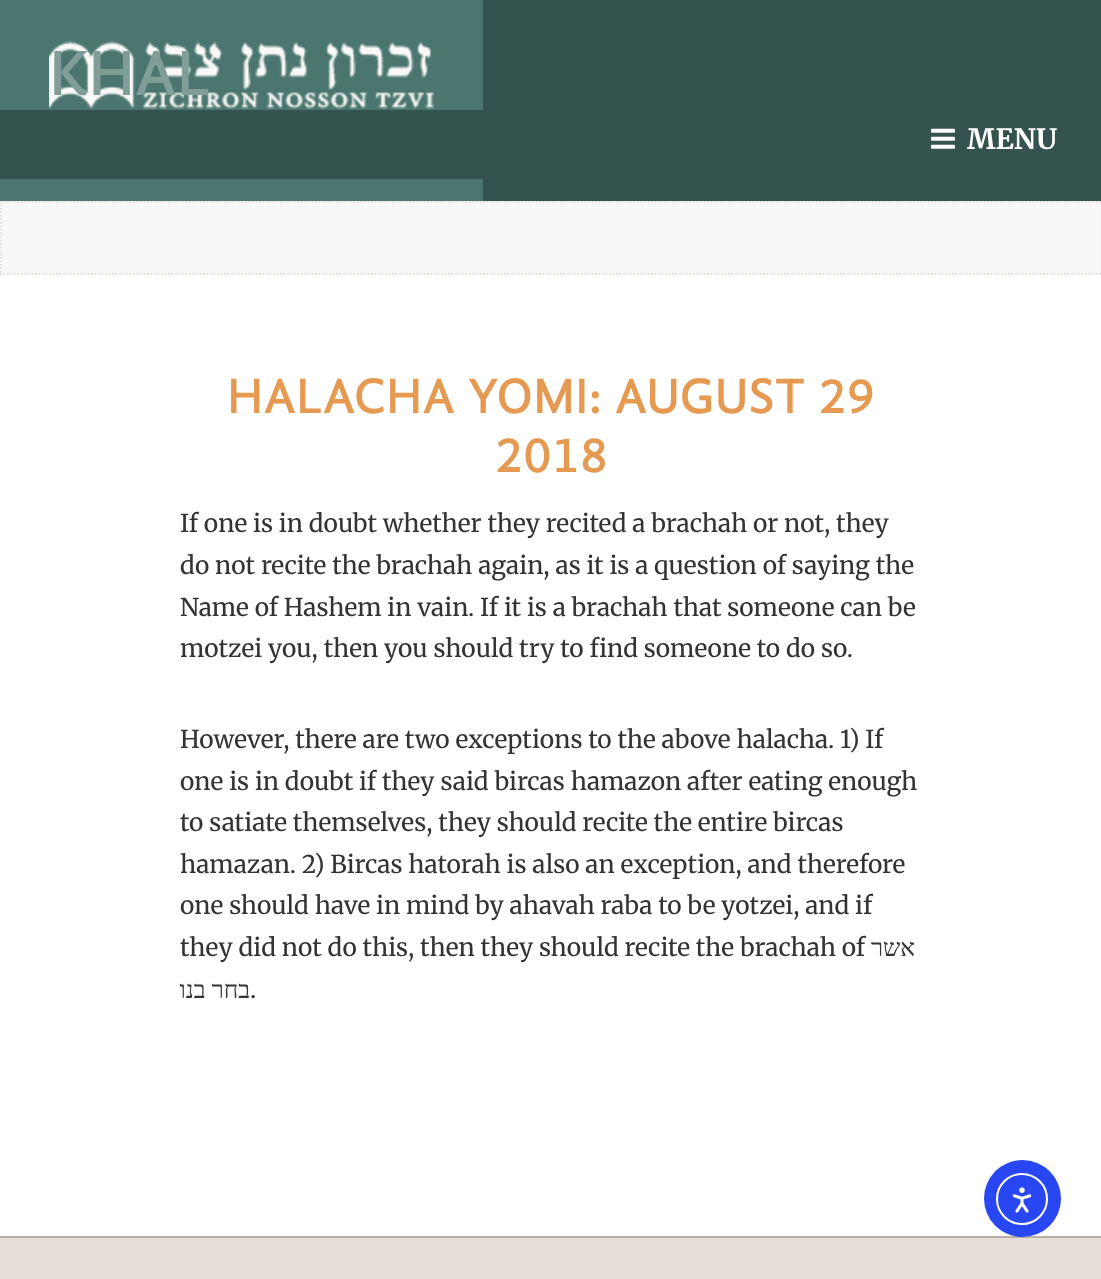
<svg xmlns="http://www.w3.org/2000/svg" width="1101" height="1279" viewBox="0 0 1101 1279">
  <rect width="100%" height="100%" fill="#fff"/>
  <path d="M0 0h483v201H0z" fill="#4b766f"/>
  <image x="49" y="41" width="385" height="68" href="img/1.png"/>
  <path d="M483 0h618v201H483z" fill="#35534e"/>
  <path d="M0 110h483v69H0z" fill="#35534e"/>
  <image x="931" y="128" width="24" height="21" href="img/2.png"/>
  <path d="M0 201h1101v74H0z" fill="#faf8f7"/>
  <path d="M0 202H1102.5" fill="none" stroke="#e7ded8" stroke-width="1.8" stroke-dasharray="1.75 1.75"/>
  <path d="M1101.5 201V275" fill="none" stroke="#e7ded8" stroke-width="1.8" stroke-dasharray="1.75 1.75"/>
  <path d="M0 274H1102.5" fill="none" stroke="#e7ded8" stroke-width="1.8" stroke-dasharray="1.75 1.75"/>
  <path d="M1 201V275" fill="none" stroke="#e7ded8" stroke-width="1.8" stroke-dasharray="1.75 1.75"/>
  <path d="M0 1238h1101v41H0z" fill="#e7ded8"/>
  <path d="M0 1236h1101v2H0z" fill="#b7aea7"/>
  <circle cx="1022.5" cy="1198.5" r="38.5" fill="#2847f3"/>
  <circle cx="1022" cy="1199" r="25" fill="none" stroke="#fff" stroke-width="2"/>
  <image x="1012" y="1187" width="20" height="26" href="img/3.png"/>
  <text x="49" y="95" font-family="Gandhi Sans" font-size="63" font-weight="bold" letter-spacing="1.3" fill="#809d98">KHAL</text>
  <text x="967" y="149" font-family="Merriweather" font-size="28" font-weight="bold" fill="#fff">MENU</text>
  <g font-family="Gandhi Sans" font-size="49" font-weight="bold" letter-spacing="1.3" fill="#e59951">
    <text x="227" y="413">HALACHA YOMI: AUGUST 29</text>
    <text x="495" y="472">2018</text>
  </g>
  <g font-family="Merriweather" font-size="24.5" fill="#333">
    <text x="180" y="532">If one is in doubt whether they recited a brachah or not, they</text>
    <text x="180" y="574">do not recite the brachah again, as it is a question of saying the</text>
    <text x="180" y="616">Name of Hashem in vain. If it is a brachah that someone can be</text>
    <text x="180" y="657">motzei you, then you should try to find someone to do so.</text>
    <text x="180" y="748">However, there are two exceptions to the above halacha. 1) If</text>
    <text x="180" y="790">one is in doubt if they said bircas hamazon after eating enough</text>
    <text x="180" y="831">to satiate themselves, they should recite the entire bircas</text>
    <text x="180" y="873">hamazan. 2) Bircas hatorah is also an exception, and therefore</text>
    <text x="180" y="914">one should have in mind by ahavah raba to be yotzei, and if</text>
    <text x="180" y="956">they did not do this, then they should recite the brachah of</text>
  </g>
  <g font-family="Liberation Serif" font-size="24.5" direction="rtl" fill="#333">
    <text x="915" y="956">אשר</text>
    <text x="250" y="998">בחר בנו</text>
  </g>
  <text x="250" y="998" font-family="Merriweather" font-size="24.5" fill="#333">.</text>
</svg>
